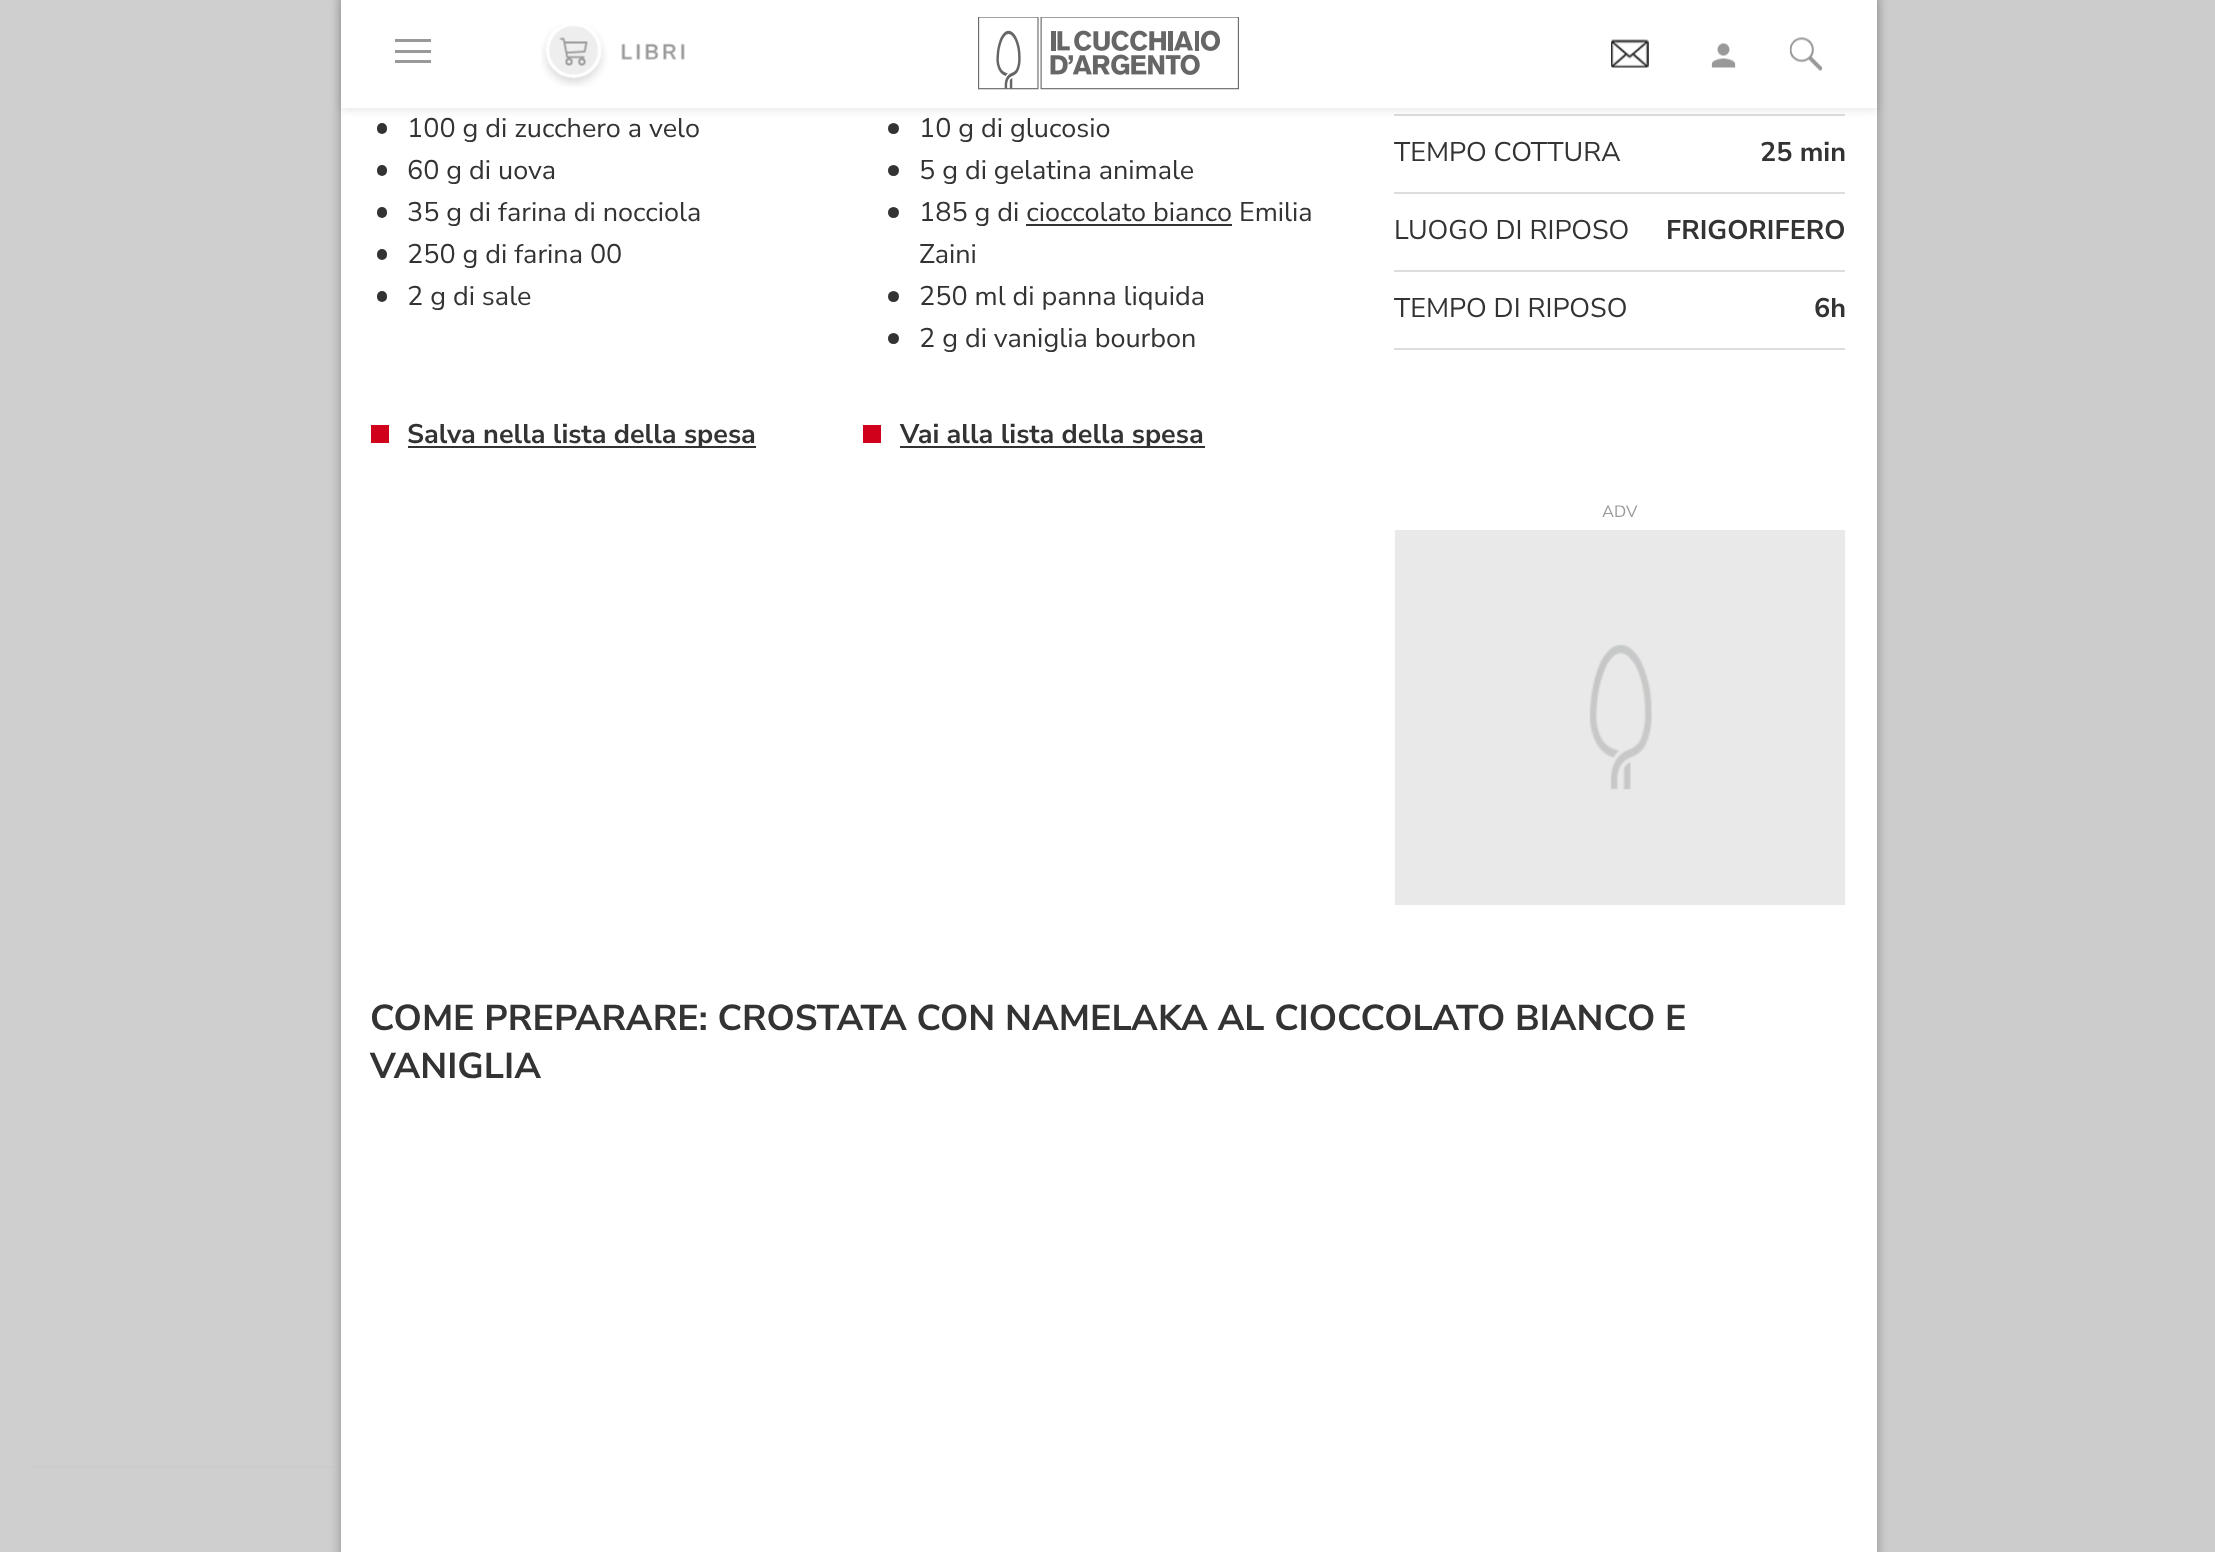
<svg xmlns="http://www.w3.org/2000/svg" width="2215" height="1552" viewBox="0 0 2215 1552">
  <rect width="100%" height="100%" fill="#ccc"/>
  <path d="M0 0h341v1552H0z" fill="#cfcfcf"/>
  <path d="M30 1466h311v2H30z" fill="#ccc"/>
  <path d="M341 -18h1536v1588H341z" fill="#0000004d" filter="blur(6px)"/>
  <path d="M341 108h1536v1444H341z" fill="#fff"/>
  <rect x="377" y="123" width="10" height="11" rx="5" fill="#333"/>
  <circle cx="893.5" cy="128.5" r="5.5" fill="#333"/>
  <path d="M1394 114h451v2H1394z" fill="#ddd"/>
  <path d="M341 2h1536v108H341z" fill="#0000001a" filter="blur(4.5px)"/>
  <path d="M341 0h1536v108H341z" fill="#fff"/>
  <path d="M395 39h36v3H395z" fill="#999"/>
  <path d="M395 50h36v3H395z" fill="#999"/>
  <path d="M395 60h36v3H395z" fill="#999"/>
  <image x="541" y="24" width="144" height="63" href="img/1.png"/>
  <image x="978" y="17" width="261" height="73" href="img/2.png"/>
  <image x="1611" y="39" width="38" height="29" href="img/3.png"/>
  <image x="1711" y="43" width="25" height="25" href="img/4.png"/>
  <image x="1789" y="37" width="34" height="34" href="img/5.png"/>
  <rect x="377" y="165" width="10" height="11" rx="5" fill="#333"/>
  <rect x="377" y="207" width="10" height="11" rx="5" fill="#333"/>
  <rect x="377" y="249" width="10" height="11" rx="5" fill="#333"/>
  <rect x="377" y="291" width="10" height="11" rx="5" fill="#333"/>
  <circle cx="893.5" cy="170.5" r="5.5" fill="#333"/>
  <circle cx="893.5" cy="212.5" r="5.5" fill="#333"/>
  <path d="M1026 224h206v2H1026z" fill="#333"/>
  <circle cx="893.5" cy="296.5" r="5.5" fill="#333"/>
  <circle cx="893.5" cy="338.5" r="5.5" fill="#333"/>
  <path d="M371 425h18v18H371z" fill="#d0011b"/>
  <path d="M408 446h348v2H408z" fill="#333"/>
  <path d="M863 425h18v18H863z" fill="#d0011b"/>
  <path d="M900 446h305v2H900z" fill="#333"/>
  <path d="M1394 192h451v2H1394z" fill="#ddd"/>
  <path d="M1394 270h451v2H1394z" fill="#ddd"/>
  <path d="M1394 348h451v2H1394z" fill="#ddd"/>
  <path d="M1395 530h450v375H1395z" fill="#e9e9e9"/>
  <image x="1589" y="644" width="63" height="146" href="img/6.png"/>
  <g font-family="Nunito Sans" font-size="27" fill="#333">
    <text x="407" y="137">100 g di zucchero a velo</text>
    <text x="407" y="179">60 g di uova</text>
    <text x="407" y="221">35 g di farina di nocciola</text>
    <text x="407" y="263">250 g di farina 00</text>
    <text x="407" y="305">2 g di sale</text>
    <text x="919" y="137">10 g di glucosio</text>
    <text x="919" y="179">5 g di gelatina animale</text>
    <text x="919" y="221">185 g di cioccolato bianco Emilia</text>
    <text x="919" y="263">Zaini</text>
    <text x="919" y="305">250 ml di panna liquida</text>
    <text x="919" y="347">2 g di vaniglia bourbon</text>
  </g>
  <g font-family="Nunito Sans" font-size="27" font-weight="bold" fill="#333">
    <text x="407" y="443">Salva nella lista della spesa</text>
    <text x="900" y="443">Vai alla lista della spesa</text>
  </g>
  <text x="1394" y="161" font-family="Nunito Sans" font-size="27" fill="#333">TEMPO COTTURA</text>
  <text x="1760" y="161" font-family="Nunito Sans" font-size="27" font-weight="bold" fill="#333">25 min</text>
  <text x="1394" y="239" font-family="Nunito Sans" font-size="27" fill="#333">LUOGO DI RIPOSO</text>
  <text x="1666" y="239" font-family="Nunito Sans" font-size="27" font-weight="bold" fill="#333">FRIGORIFERO</text>
  <text x="1394" y="317" font-family="Nunito Sans" font-size="27" fill="#333">TEMPO DI RIPOSO</text>
  <text x="1814" y="317" font-family="Nunito Sans" font-size="27" font-weight="bold" fill="#333">6h</text>
  <text x="1602" y="517" font-family="Nunito Sans" font-size="16.5" fill="#999">ADV</text>
  <g font-family="Nunito Sans" font-size="36" font-weight="bold" fill="#333">
    <text x="370" y="1030">COME PREPARARE: CROSTATA CON NAMELAKA AL CIOCCOLATO BIANCO E</text>
    <text x="370" y="1078">VANIGLIA</text>
  </g>
</svg>
